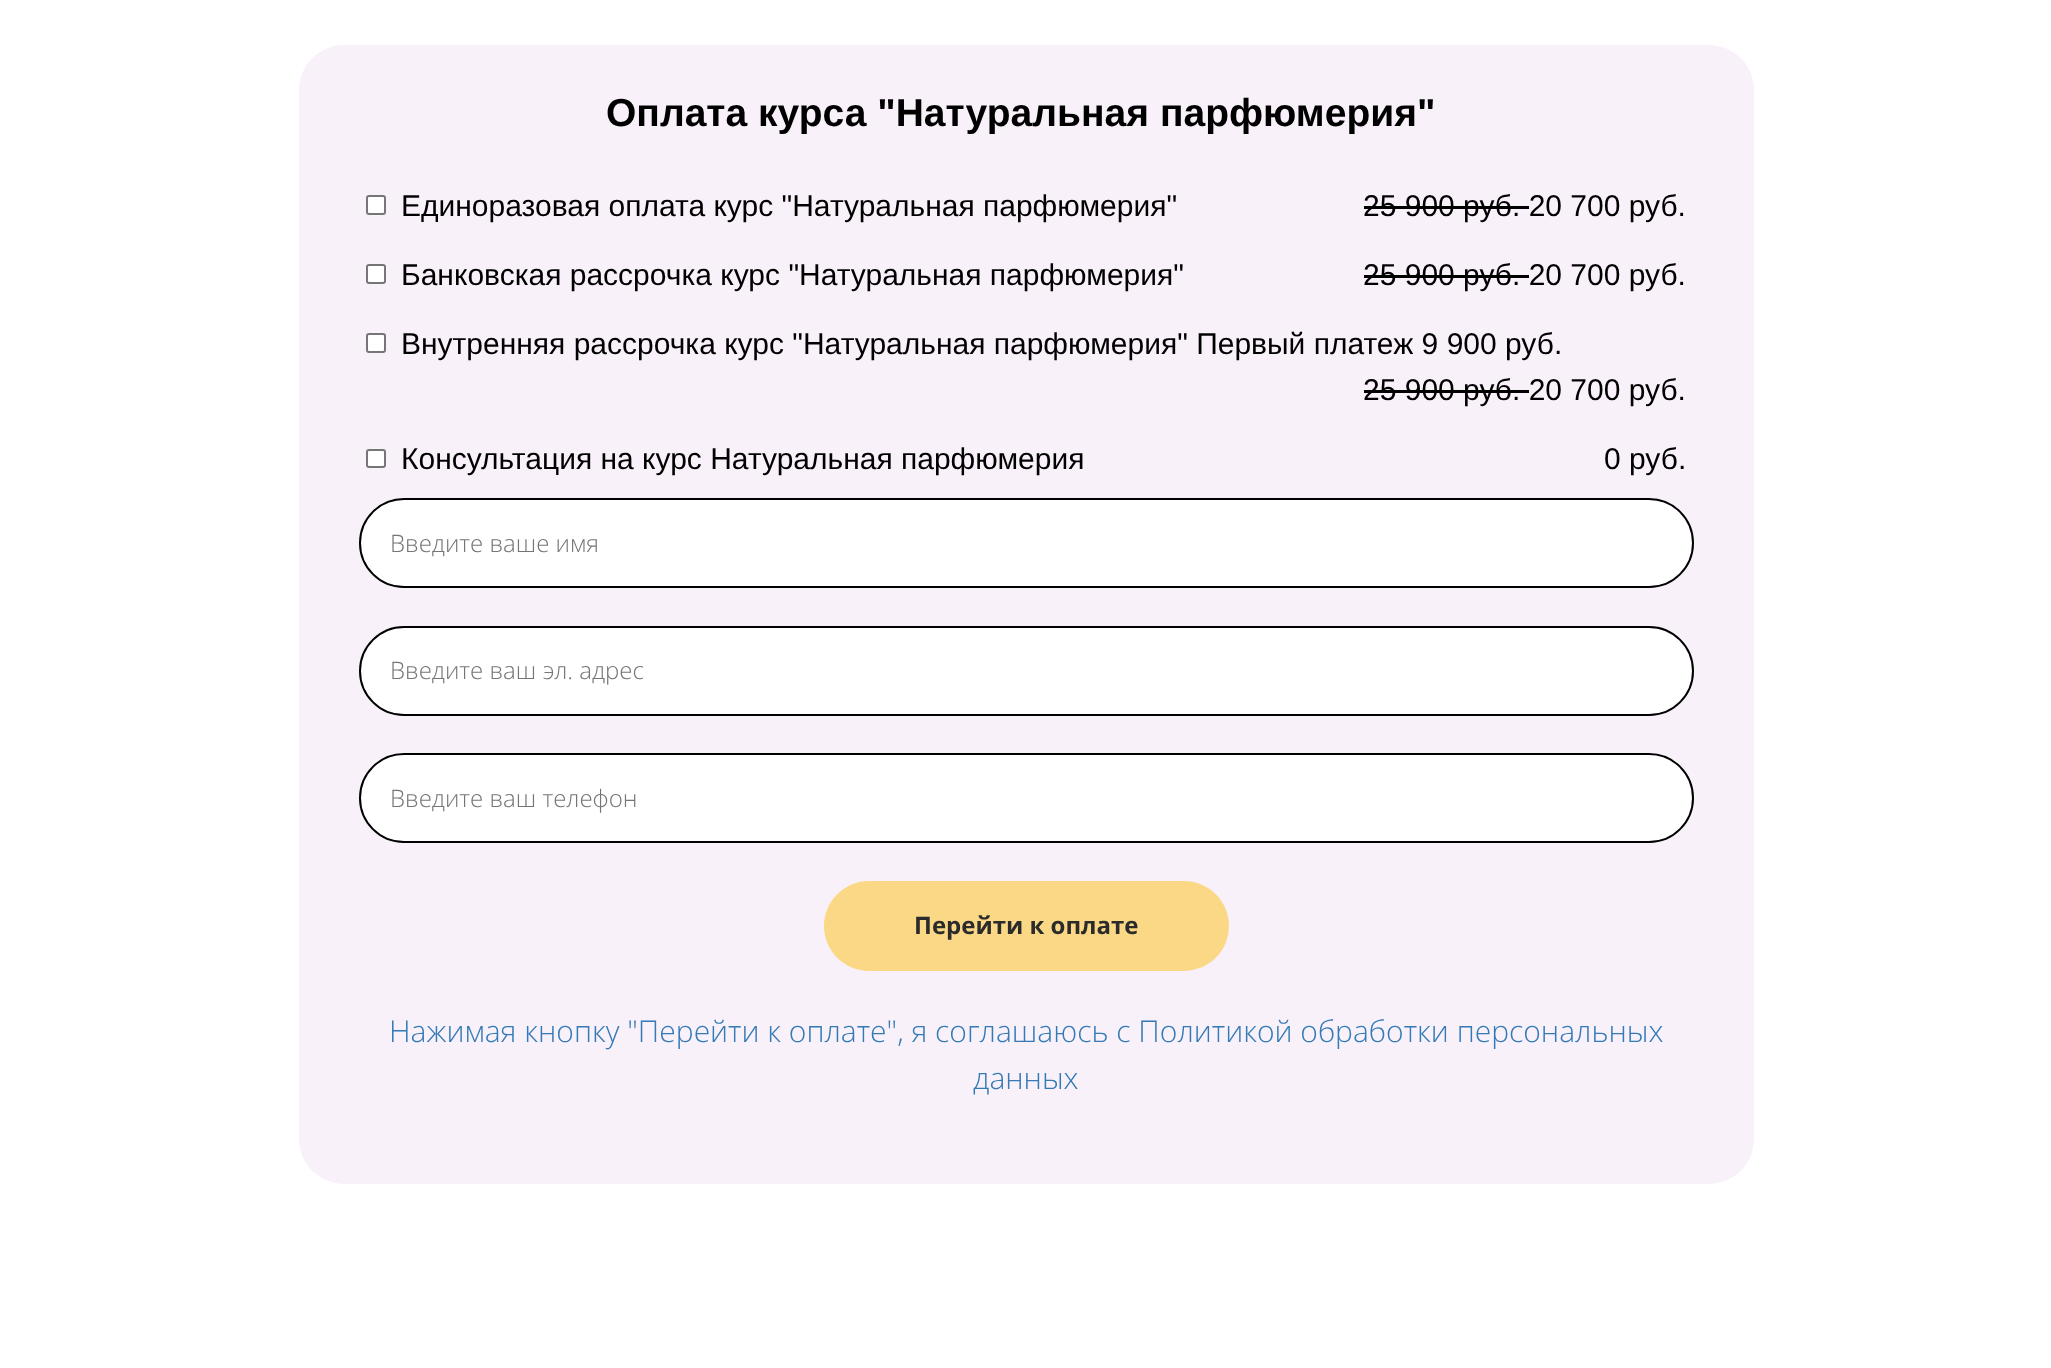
<svg xmlns="http://www.w3.org/2000/svg" width="2051" height="1368" viewBox="0 0 2051 1368">
  <rect width="100%" height="100%" fill="#fff"/>
  <rect x="299" y="45" width="1455" height="1139" rx="45" fill="#f9f1f9"/>
  <rect x="367" y="196" width="18" height="18" rx="2" fill="#fff" stroke="#767676" stroke-width="2"/>
  <path d="M1364 206h165v3H1364z" fill="#000"/>
  <rect x="367" y="265" width="18" height="18" rx="2" fill="#fff" stroke="#767676" stroke-width="2"/>
  <path d="M1364 275h165v3H1364z" fill="#000"/>
  <rect x="367" y="334" width="18" height="18" rx="2" fill="#fff" stroke="#767676" stroke-width="2"/>
  <path d="M1364 390h165v3H1364z" fill="#000"/>
  <rect x="367" y="450" width="18" height="17" rx="2" fill="#fff" stroke="#767676" stroke-width="2"/>
  <rect x="360" y="499" width="1333" height="88" rx="44" fill="#fff" stroke="#000" stroke-width="2"/>
  <rect x="360" y="627" width="1333" height="88" rx="44" fill="#fff" stroke="#000" stroke-width="2"/>
  <rect x="360" y="754" width="1333" height="88" rx="44" fill="#fff" stroke="#000" stroke-width="2"/>
  <rect x="824" y="881" width="405" height="90" rx="45" fill="#fad885"/>
  <text x="606" y="126" font-family="Liberation Sans" font-size="39" font-weight="bold" fill="#000">Оплата курса "Натуральная парфюмерия"</text>
  <g font-family="Liberation Sans" font-size="30" fill="#000">
    <text x="401" y="216">Единоразовая оплата курс "Натуральная парфюмерия"</text>
    <text x="1363" y="216">25 900 руб. 20 700 руб.</text>
    <text x="401" y="285">Банковская рассрочка курс "Натуральная парфюмерия"</text>
    <text x="1363" y="285">25 900 руб. 20 700 руб.</text>
    <text x="401" y="354">Внутренняя рассрочка курс "Натуральная парфюмерия" Первый платеж 9 900 руб.</text>
    <text x="1363" y="400">25 900 руб. 20 700 руб.</text>
    <text x="401" y="469">Консультация на курс Натуральная парфюмерия</text>
    <text x="1604" y="469">0 руб.</text>
  </g>
  <g font-family="Open Sans" font-size="24" font-weight="300" fill="#757575">
    <text x="390" y="552">Введите ваше имя</text>
    <text x="390" y="679">Введите ваш эл. адрес</text>
    <text x="390" y="807">Введите ваш телефон</text>
  </g>
  <text x="914" y="934" font-family="Open Sans" font-size="24" font-weight="bold" fill="#2b2b2b">Перейти к оплате</text>
  <g font-family="Open Sans" font-size="30" font-weight="300" fill="#337ab7">
    <text x="389" y="1042">Нажимая кнопку "Перейти к оплате", я соглашаюсь с Политикой обработки персональных</text>
    <text x="973" y="1089">данных</text>
  </g>
</svg>
